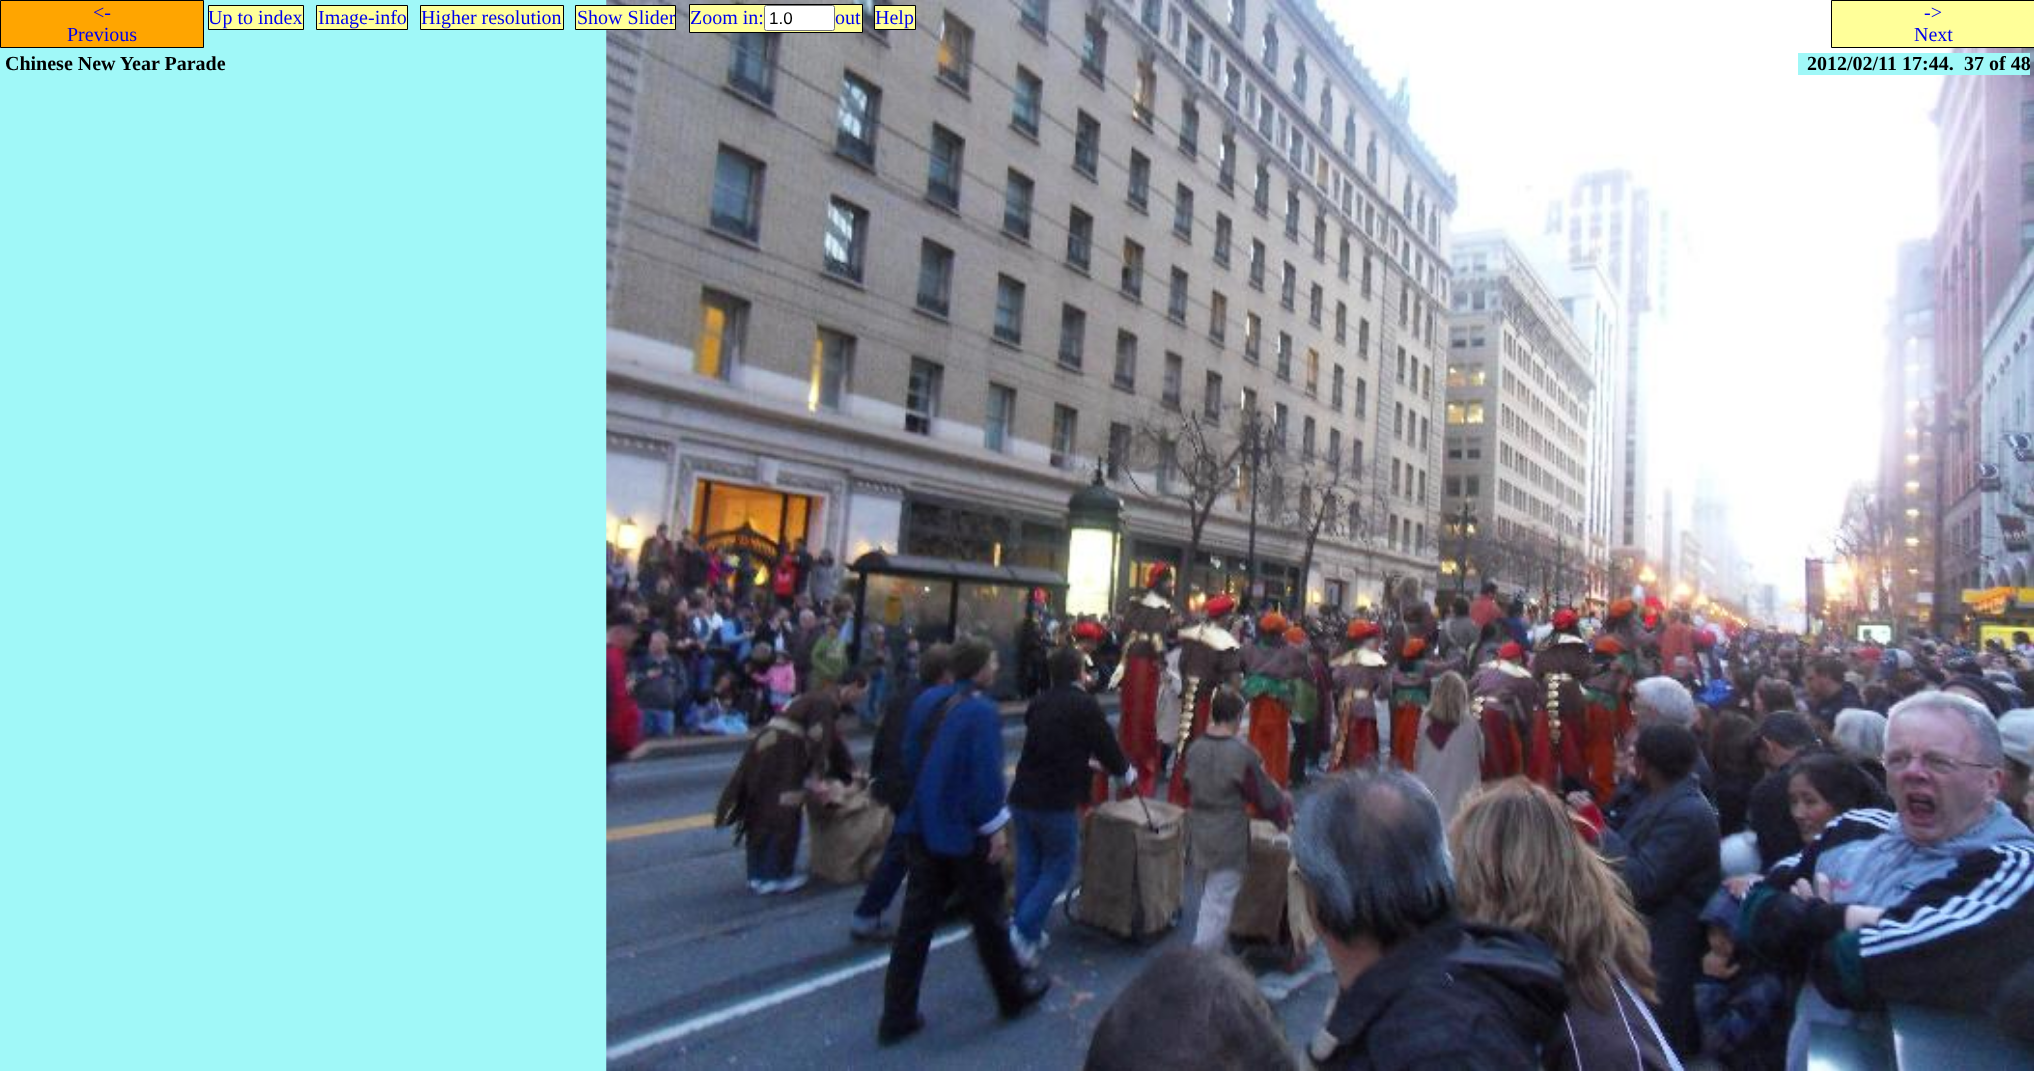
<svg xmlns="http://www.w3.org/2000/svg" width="2034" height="1071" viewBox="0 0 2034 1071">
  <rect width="100%" height="100%" fill="#a0f8f8"/>
  <image x="606" y="0" width="1428" height="1071" href="img/1.png"/>
  <path d="M0.5 0.5h203v47H0.5z" fill="#ffa500" stroke="#000"/>
  <path d="M208.5 5.5h95v24H208.5z" fill="#ff9" stroke="#000"/>
  <path d="M316.5 5.5h91v24H316.5z" fill="#ff9" stroke="#000"/>
  <path d="M420.5 5.5h143v24H420.5z" fill="#ff9" stroke="#000"/>
  <path d="M575.5 5.5h100v24H575.5z" fill="#ff9" stroke="#000"/>
  <path d="M689.5 4.5h173v28H689.5z" fill="#ff9" stroke="#000"/>
  <rect x="764.5" y="5.5" width="70" height="25" rx="2" fill="#fff" stroke="#767676"/>
  <path d="M874.5 5.5h41v24H874.5z" fill="#ff9" stroke="#000"/>
  <path d="M1831.5 0.5h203v47H1831.5z" fill="#ff9" stroke="#000"/>
  <path d="M1798 53h232v22H1798z" fill="#a0f8f8"/>
  <g font-family="Liberation Serif" font-size="20" fill="#00e">
    <text x="93" y="19">&lt;-</text>
    <text x="67" y="41">Previous</text>
    <text x="208" y="24">Up to index</text>
    <text x="318" y="24">Image-info</text>
    <text x="421" y="24">Higher resolution</text>
    <text x="577" y="24">Show Slider</text>
    <text x="690" y="24">Zoom in:</text>
  </g>
  <text x="769" y="24" font-family="Liberation Sans" font-size="17" fill="#000">1.0</text>
  <g font-family="Liberation Serif" font-size="20" fill="#00e">
    <text x="835" y="24">out</text>
    <text x="875" y="24">Help</text>
    <text x="1924" y="19">-&gt;</text>
    <text x="1914" y="41">Next</text>
  </g>
  <g font-family="Liberation Serif" font-size="20" font-weight="bold" fill="#000">
    <text x="5" y="70">Chinese New Year Parade</text>
    <text x="1807" y="70">2012/02/11 17:44.</text>
    <text x="1964" y="70">37 of 48</text>
  </g>
</svg>
